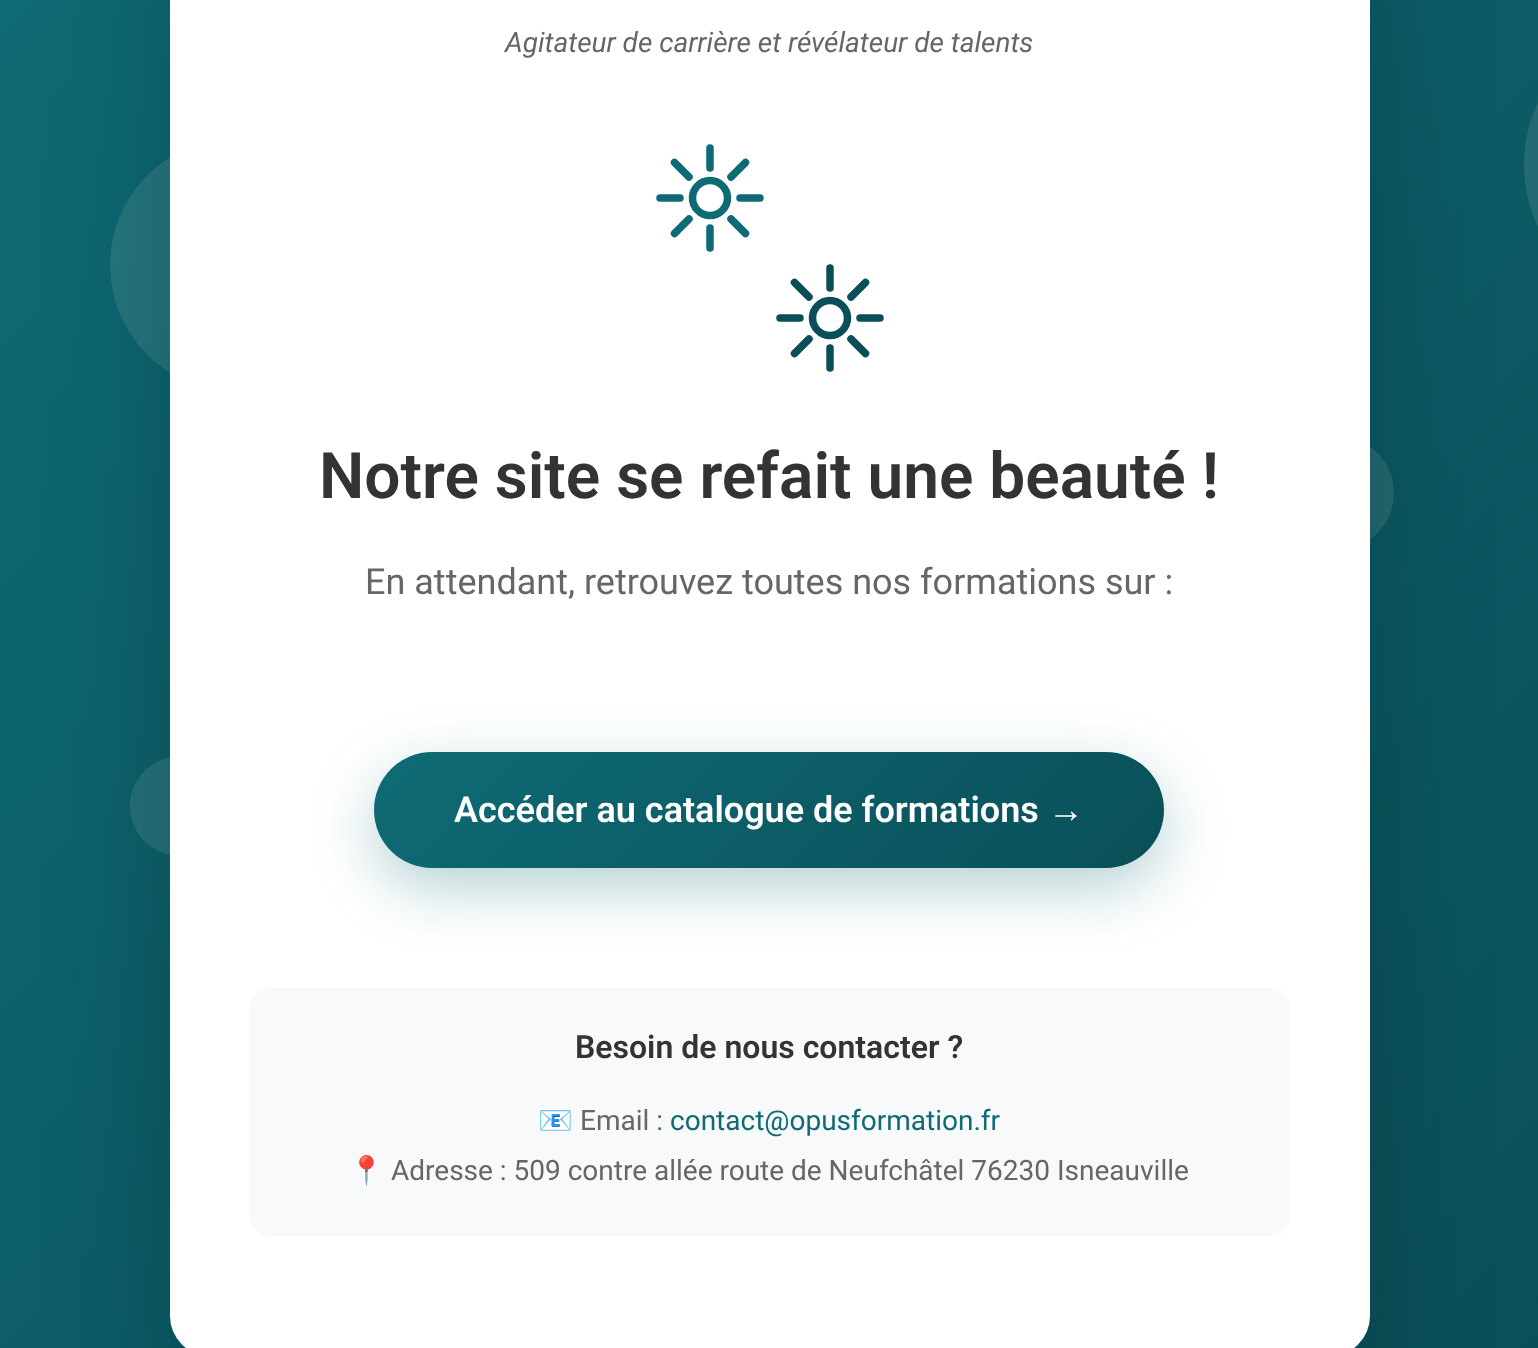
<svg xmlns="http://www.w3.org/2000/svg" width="1538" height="1348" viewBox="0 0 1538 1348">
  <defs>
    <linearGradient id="g1" gradientUnits="userSpaceOnUse" x1="7.5" y1="-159" x2="1531" y2="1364"><stop offset="0" stop-color="#0e6b75"/><stop offset="1" stop-color="#0a4f58"/></linearGradient>
    <linearGradient id="g2" gradientUnits="userSpaceOnUse" x1="543" y1="584" x2="996" y2="1037"><stop offset="0" stop-color="#0e6b75"/><stop offset="1" stop-color="#0a4f58"/></linearGradient>
  </defs>
  <rect width="100%" height="100%" fill="#fff"/>
  <path d="M0 0h1538v1348H0z" fill="url(#g1)"/>
  <circle cx="237" cy="265" r="127" fill="#ffffff1a"/>
  <path d="M1669 20H1538V310H1669C1589 310 1524 245 1524 165C1524 85 1589 20 1669 20Z" fill="#246a73"/>
  <circle cx="1337" cy="493" r="57" fill="#236972"/>
  <circle cx="180" cy="806" r="50" fill="#257079"/>
  <rect x="170" y="-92" width="1200" height="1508" rx="40" fill="#00000033" filter="blur(60px)"/>
  <rect x="170" y="-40" width="1200" height="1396" rx="40" fill="#fff"/>
  <path d="M710 215.5C719.5 215.5 727.5 207.5 727.5 198C727.5 188.5 719.5 180.5 710 180.5C700.5 180.5 692.5 188.5 692.5 198C692.5 207.5 700.5 215.5 710 215.5Z" fill="none" stroke="#0e6b75" stroke-width="7.5"/>
  <path d="M710 148V168M710 228V248M674.5 162.5L689 177M731 219L745.5 233.5M660 198H680M740 198H760M674.5 233.5L689 219M731 177L745.5 162.5" fill="none" stroke="#0e6b75" stroke-width="7.5" stroke-linecap="round"/>
  <path d="M830 335.5C839.5 335.5 847.5 327.5 847.5 318C847.5 308.5 839.5 300.5 830 300.5C820.5 300.5 812.5 308.5 812.5 318C812.5 327.5 820.5 335.5 830 335.5Z" fill="none" stroke="#0a4f58" stroke-width="7.5"/>
  <path d="M830 268V288M830 348V368M794.5 282.5L809 297M851 339L865.5 353.5M780 318H800M860 318H880M794.5 353.5L809 339M851 297L865.5 282.5" fill="none" stroke="#0a4f58" stroke-width="7.5" stroke-linecap="round"/>
  <rect x="374" y="772" width="790" height="116" rx="58" fill="#0e6b754d" filter="blur(30px)"/>
  <rect x="374" y="752" width="790" height="116" rx="58" fill="url(#g2)"/>
  <rect x="250" y="988" width="1040" height="248" rx="20" fill="#f8f9fa"/>
  <text x="505" y="52" font-family="Roboto" font-size="28" font-style="italic" fill="#666">Agitateur de carrière et révélateur de talents</text>
  <text x="319" y="498" font-family="Roboto" font-size="64" font-weight="600" fill="#333">Notre site se refait une beauté !</text>
  <text x="365" y="594" font-family="Roboto" font-size="36" fill="#666">En attendant, retrouvez toutes nos formations sur :</text>
  <text x="454" y="822" font-family="Roboto" font-size="36" font-weight="600" fill="#fff">Accéder au catalogue de formations</text>
  <text x="1048" y="822" font-family="Liberation Sans" font-size="36" font-weight="bold" fill="#fff">→</text>
  <text x="575" y="1058" font-family="Roboto" font-size="32" font-weight="600" fill="#333">Besoin de nous contacter ?</text>
  <text x="538" y="1130" font-family="Noto Color Emoji" font-size="28" fill="#666">📧</text>
  <text x="580" y="1130" font-family="Roboto" font-size="28" fill="#666">Email :</text>
  <text x="670" y="1130" font-family="Roboto" font-size="28" fill="#0e6b75">contact@opusformation.fr</text>
  <text x="349" y="1180" font-family="Noto Color Emoji" font-size="28" fill="#666">📍</text>
  <text x="391" y="1180" font-family="Roboto" font-size="28" fill="#666">Adresse : 509 contre allée route de Neufchâtel 76230 Isneauville</text>
</svg>
